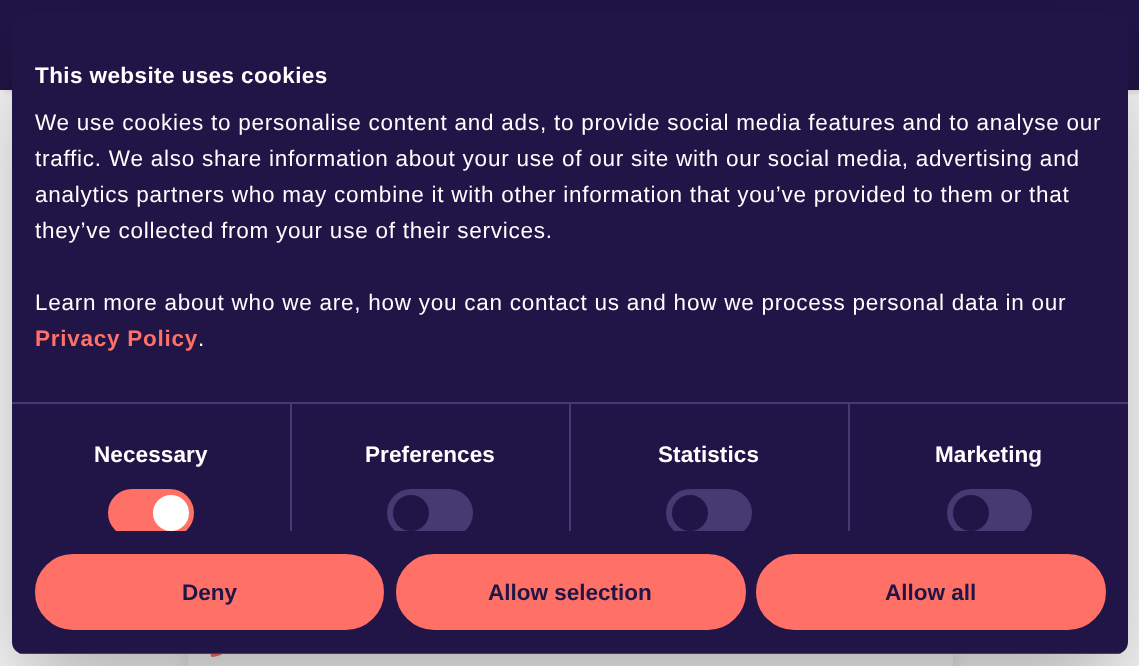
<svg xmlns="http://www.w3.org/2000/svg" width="1139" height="666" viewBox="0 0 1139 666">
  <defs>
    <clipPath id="clip1"><path d="M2 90h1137v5H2z"/></clipPath>
    <clipPath id="clip2"><path d="M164 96H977V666H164ZM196 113H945C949.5 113 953 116.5 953 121V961C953 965.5 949.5 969 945 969H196C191.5 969 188 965.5 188 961V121C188 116.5 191.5 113 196 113Z" clip-rule="evenodd"/></clipPath>
    <clipPath id="clip3"><path d="M12 12h1116v519H12z"/></clipPath>
    <clipPath id="clip4"><rect x="12" y="12" width="1116" height="642" rx="12"/></clipPath>
  </defs>
  <rect width="100%" height="100%" fill="#201546"/>
  <path d="M0 90h1139v576H0z" fill="#fff"/>
  <g clip-path="url(#clip1)">
    <path d="M5 0h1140v90H5z" fill="#0000002e" filter="blur(4.5px)"/>
  </g>
  <g clip-path="url(#clip2)">
    <rect x="188" y="120" width="765" height="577" rx="8" fill="#0000001a" filter="blur(7.5px)"/>
  </g>
  <image x="210" y="654" width="12" height="3" href="img/1.png"/>
  <rect x="12" y="60" width="1116" height="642" rx="12" fill="#0000004d" filter="blur(51px)"/>
  <rect x="12" y="12" width="1116" height="642" rx="12" fill="#201546"/>
  <path d="M12 402h1116v2H12z" fill="#473a72"/>
  <path d="M290 404h2v127H290z" fill="#473a72"/>
  <g clip-path="url(#clip3)">
    <rect x="108" y="489" width="86" height="48" rx="24" fill="#ff7066"/>
  </g>
  <circle cx="171" cy="513" r="18" fill="#fff"/>
  <path d="M569 404h2v127H569z" fill="#473a72"/>
  <g clip-path="url(#clip3)">
    <rect x="387" y="489" width="86" height="48" rx="24" fill="#473a72"/>
  </g>
  <circle cx="411" cy="513" r="18" fill="#201546"/>
  <path d="M848 404h2v127H848z" fill="#473a72"/>
  <g clip-path="url(#clip3)">
    <rect x="666" y="489" width="86" height="48" rx="24" fill="#473a72"/>
  </g>
  <circle cx="690" cy="513" r="18" fill="#201546"/>
  <g clip-path="url(#clip3)">
    <rect x="947" y="489" width="85" height="48" rx="24" fill="#473a72"/>
  </g>
  <circle cx="971" cy="513" r="18" fill="#201546"/>
  <g clip-path="url(#clip4)">
    <path d="M12 653h1116v1H12z" fill="#473a72"/>
  </g>
  <rect x="36.5" y="555.5" width="346" height="73" rx="36.5" fill="#ff7066" stroke="#ff7066" stroke-width="3"/>
  <rect x="397.5" y="555.5" width="347" height="73" rx="36.5" fill="#ff7066" stroke="#ff7066" stroke-width="3"/>
  <rect x="757.5" y="555.5" width="347" height="73" rx="36.5" fill="#ff7066" stroke="#ff7066" stroke-width="3"/>
  <text x="35" y="83" font-family="Liberation Sans" font-size="22.5" font-weight="bold" letter-spacing="0.4" fill="#fff">This website uses cookies</text>
  <g font-family="Liberation Sans" font-size="22.5" letter-spacing="0.75" fill="#fff">
    <text x="35" y="130">We use cookies to personalise content and ads, to provide social media features and to analyse our</text>
    <text x="35" y="166">traffic. We also share information about your use of our site with our social media, advertising and</text>
    <text x="35" y="202">analytics partners who may combine it with other information that you’ve provided to them or that</text>
    <text x="35" y="238">they’ve collected from your use of their services.</text>
    <text x="35" y="310">Learn more about who we are, how you can contact us and how we process personal data in our</text>
  </g>
  <text x="35" y="346" font-family="Liberation Sans" font-size="22.5" font-weight="bold" letter-spacing="0.75" fill="#ff7066">Privacy Policy</text>
  <text x="198" y="346" font-family="Liberation Sans" font-size="22.5" letter-spacing="0.75" fill="#fff">.</text>
  <g font-family="Liberation Sans" font-size="22.5" font-weight="bold" letter-spacing="0.1" fill="#fff">
    <text x="94" y="462">Necessary</text>
    <text x="365" y="462">Preferences</text>
    <text x="658" y="462">Statistics</text>
    <text x="935" y="462">Marketing</text>
  </g>
  <g font-family="Liberation Sans" font-size="22.5" font-weight="bold" fill="#201546">
    <text x="182" y="600">Deny</text>
    <text x="488" y="600">Allow selection</text>
    <text x="885" y="600">Allow all</text>
  </g>
</svg>
